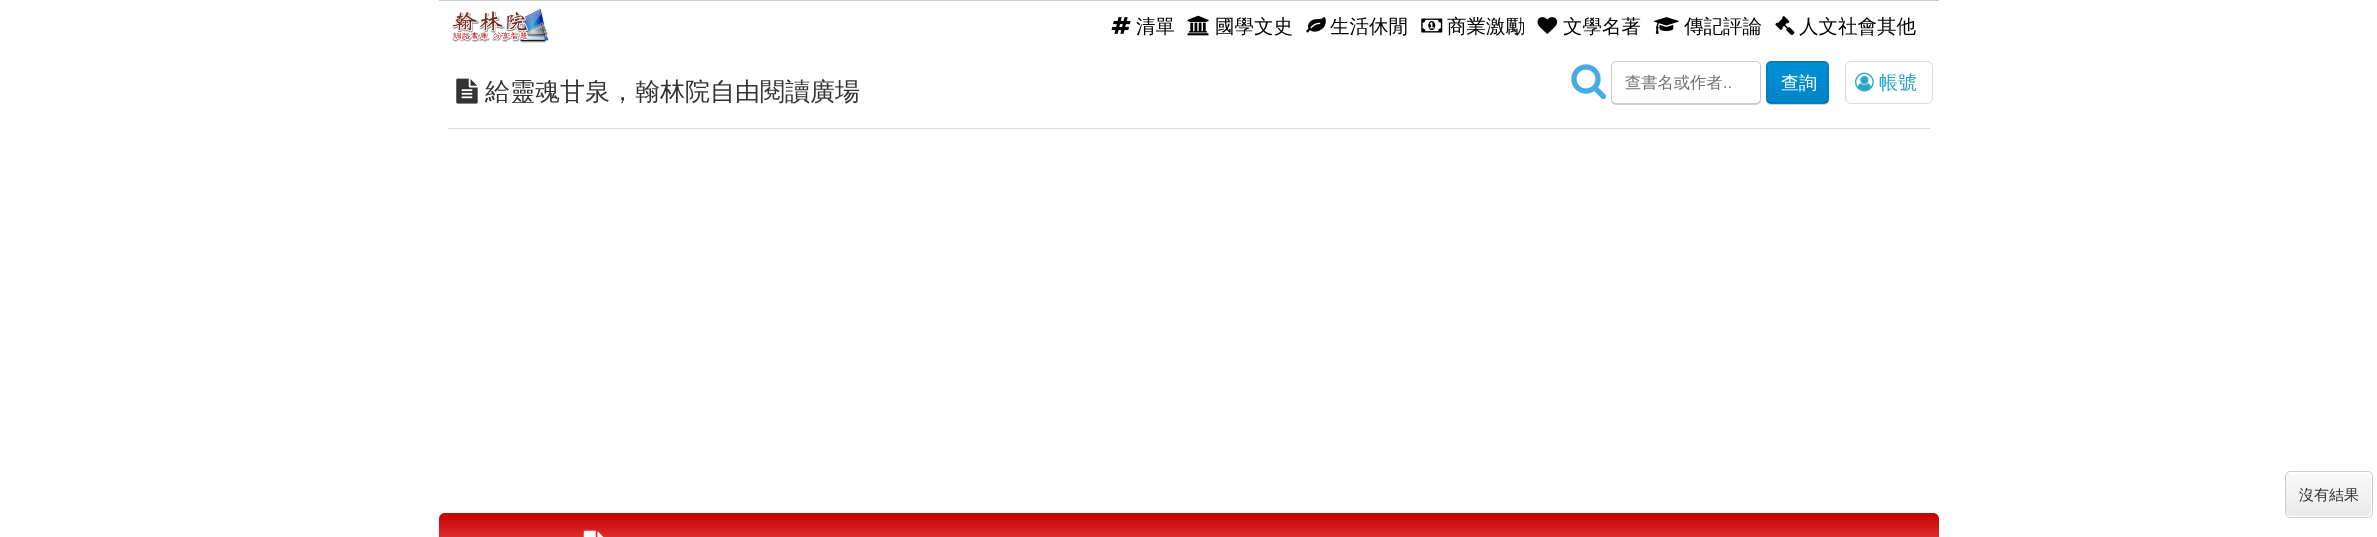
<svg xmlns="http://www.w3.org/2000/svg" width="2377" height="537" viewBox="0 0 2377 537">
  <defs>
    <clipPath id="clip1"><rect x="1766" y="61" width="63" height="43" rx="5"/></clipPath>
    <linearGradient id="g1" gradientUnits="userSpaceOnUse" x1="1768" y1="23" x2="1768" y2="63"><stop offset="0" stop-color="#008fd5"/><stop offset="1" stop-color="#0085c6"/></linearGradient>
    <linearGradient id="g2" gradientUnits="userSpaceOnUse" x1="1768" y1="63" x2="1768" y2="103"><stop offset="0" stop-color="#008fd5"/><stop offset="1" stop-color="#0085c6"/></linearGradient>
    <linearGradient id="g3" gradientUnits="userSpaceOnUse" x1="1768" y1="103" x2="1768" y2="143"><stop offset="0" stop-color="#008fd5"/><stop offset="1" stop-color="#0085c6"/></linearGradient>
    <clipPath id="clip2"><rect x="2286" y="473" width="85" height="43" rx="4"/></clipPath>
    <linearGradient id="g4" gradientUnits="userSpaceOnUse" x1="2329" y1="431" x2="2329" y2="474"><stop offset="0" stop-color="#f9f9f9"/><stop offset="1" stop-color="#eaeaea"/></linearGradient>
    <linearGradient id="g5" gradientUnits="userSpaceOnUse" x1="2329" y1="474" x2="2329" y2="516"><stop offset="0" stop-color="#f9f9f9"/><stop offset="1" stop-color="#eaeaea"/></linearGradient>
    <linearGradient id="g6" gradientUnits="userSpaceOnUse" x1="439" y1="513" x2="439" y2="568"><stop offset="0" stop-color="#c40000"/><stop offset="1" stop-color="#fc6868"/></linearGradient>
  </defs>
  <rect width="100%" height="100%" fill="#fff"/>
  <path d="M439 0h1500v1H439z" fill="#ccc"/>
  <image x="452" y="9" width="97" height="34" href="img/1.png"/>
  <image x="1111" y="17" width="20" height="17" href="img/2.png"/>
  <image x="1187" y="15" width="22" height="21" href="img/3.png"/>
  <image x="1306" y="17" width="20" height="16" href="img/4.png"/>
  <image x="1421" y="18" width="22" height="15" href="img/5.png"/>
  <image x="1537" y="17" width="21" height="17" href="img/6.png"/>
  <image x="1653" y="17" width="26" height="17" href="img/7.png"/>
  <image x="1775" y="16" width="20" height="20" href="img/8.png"/>
  <image x="456" y="78" width="22" height="26" href="img/9.png"/>
  <image x="1571" y="64" width="36" height="36" href="img/10.png"/>
  <rect x="1611" y="63" width="150" height="42" rx="5" fill="#6464644d" filter="blur(0.5px)"/>
  <rect x="1611.5" y="61.5" width="149" height="42" rx="4.5" fill="#fff" stroke="#ccc"/>
  <rect x="1766" y="63" width="63" height="42" rx="5" fill="#6464644d" filter="blur(0.5px)"/>
  <g clip-path="url(#clip1)">
    <path d="M1766 61h63v2H1766z" fill="url(#g1)"/>
    <path d="M1766 63h63v40H1766z" fill="url(#g2)"/>
    <path d="M1766 103h63v1H1766z" fill="url(#g3)"/>
  </g>
  <path d="M1827 102C1826 102.5 1825 103 1824 103H1771C1770 103 1769 102.5 1768 102" fill="none" stroke="#00000040" stroke-width="1.2"/>
  <path d="M1768 102C1767.5 101 1767 100 1767 99V66C1767 65 1767.5 64 1768 63C1769 62.5 1770 62 1771 62H1824C1825 62 1826 62.5 1827 63C1827.5 64 1828 65 1828 66V99C1828 100 1827.5 101 1827 102" fill="none" stroke="#0000001a" stroke-width="1.2"/>
  <rect x="1845.5" y="61.5" width="87" height="42" rx="5.5" fill="none" stroke="#ddd"/>
  <image x="1855" y="72" width="19" height="20" href="img/11.png"/>
  <path d="M448 128h1482v1H448z" fill="#ddd"/>
  <rect x="2285.5" y="471.5" width="87" height="46" rx="4.5" fill="none" stroke="#ccc"/>
  <rect x="2286" y="473" width="85" height="43" rx="4" fill="#f5f5f5"/>
  <g clip-path="url(#clip2)">
    <path d="M2286 473h3v1H2286z" fill="url(#g4)"/>
    <path d="M2286 474H2371V512C2371 514 2369 516 2367 516H2290C2288 516 2286 514 2286 512Z" fill="url(#g5)"/>
  </g>
  <path d="M2289 473h81v1H2289z" fill="#fff"/>
  <path d="M445 513H1933C1936.5 513 1939 515.5 1939 519V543H439V519C439 515.5 441.5 513 445 513Z" fill="url(#g6)"/>
  <image x="583" y="530" width="21" height="7" href="img/12.png"/>
  <g font-family="WenQuanYi Zen Hei" font-size="19.5" font-weight="500" fill="#000">
    <text x="1136" y="33">清單</text>
    <text x="1215" y="33">國學文史</text>
    <text x="1330" y="33">生活休閒</text>
    <text x="1447" y="33">商業激勵</text>
    <text x="1563" y="33">文學名著</text>
    <text x="1684" y="33">傳記評論</text>
    <text x="1799" y="33">人文社會其他</text>
  </g>
  <text x="485" y="100" font-family="WenQuanYi Zen Hei" font-size="25" font-weight="500" fill="#333">給靈魂甘泉，翰林院自由閱讀廣場</text>
  <text x="1625" y="88" font-family="WenQuanYi Zen Hei" font-size="16.25" font-weight="500" fill="#757575">查書名或作者</text>
  <text x="1723" y="88" font-family="Liberation Sans" font-size="16.25" fill="#757575">..</text>
  <text x="1781" y="89" font-family="WenQuanYi Zen Hei" font-size="18" font-weight="500" fill="#fff">查詢</text>
  <text x="1879" y="89" font-family="WenQuanYi Zen Hei" font-size="19" font-weight="500" fill="#2ba6cb">帳號</text>
  <text x="2299" y="500" font-family="WenQuanYi Zen Hei" font-size="15" font-weight="500" fill="#333">沒有結果</text>
</svg>
